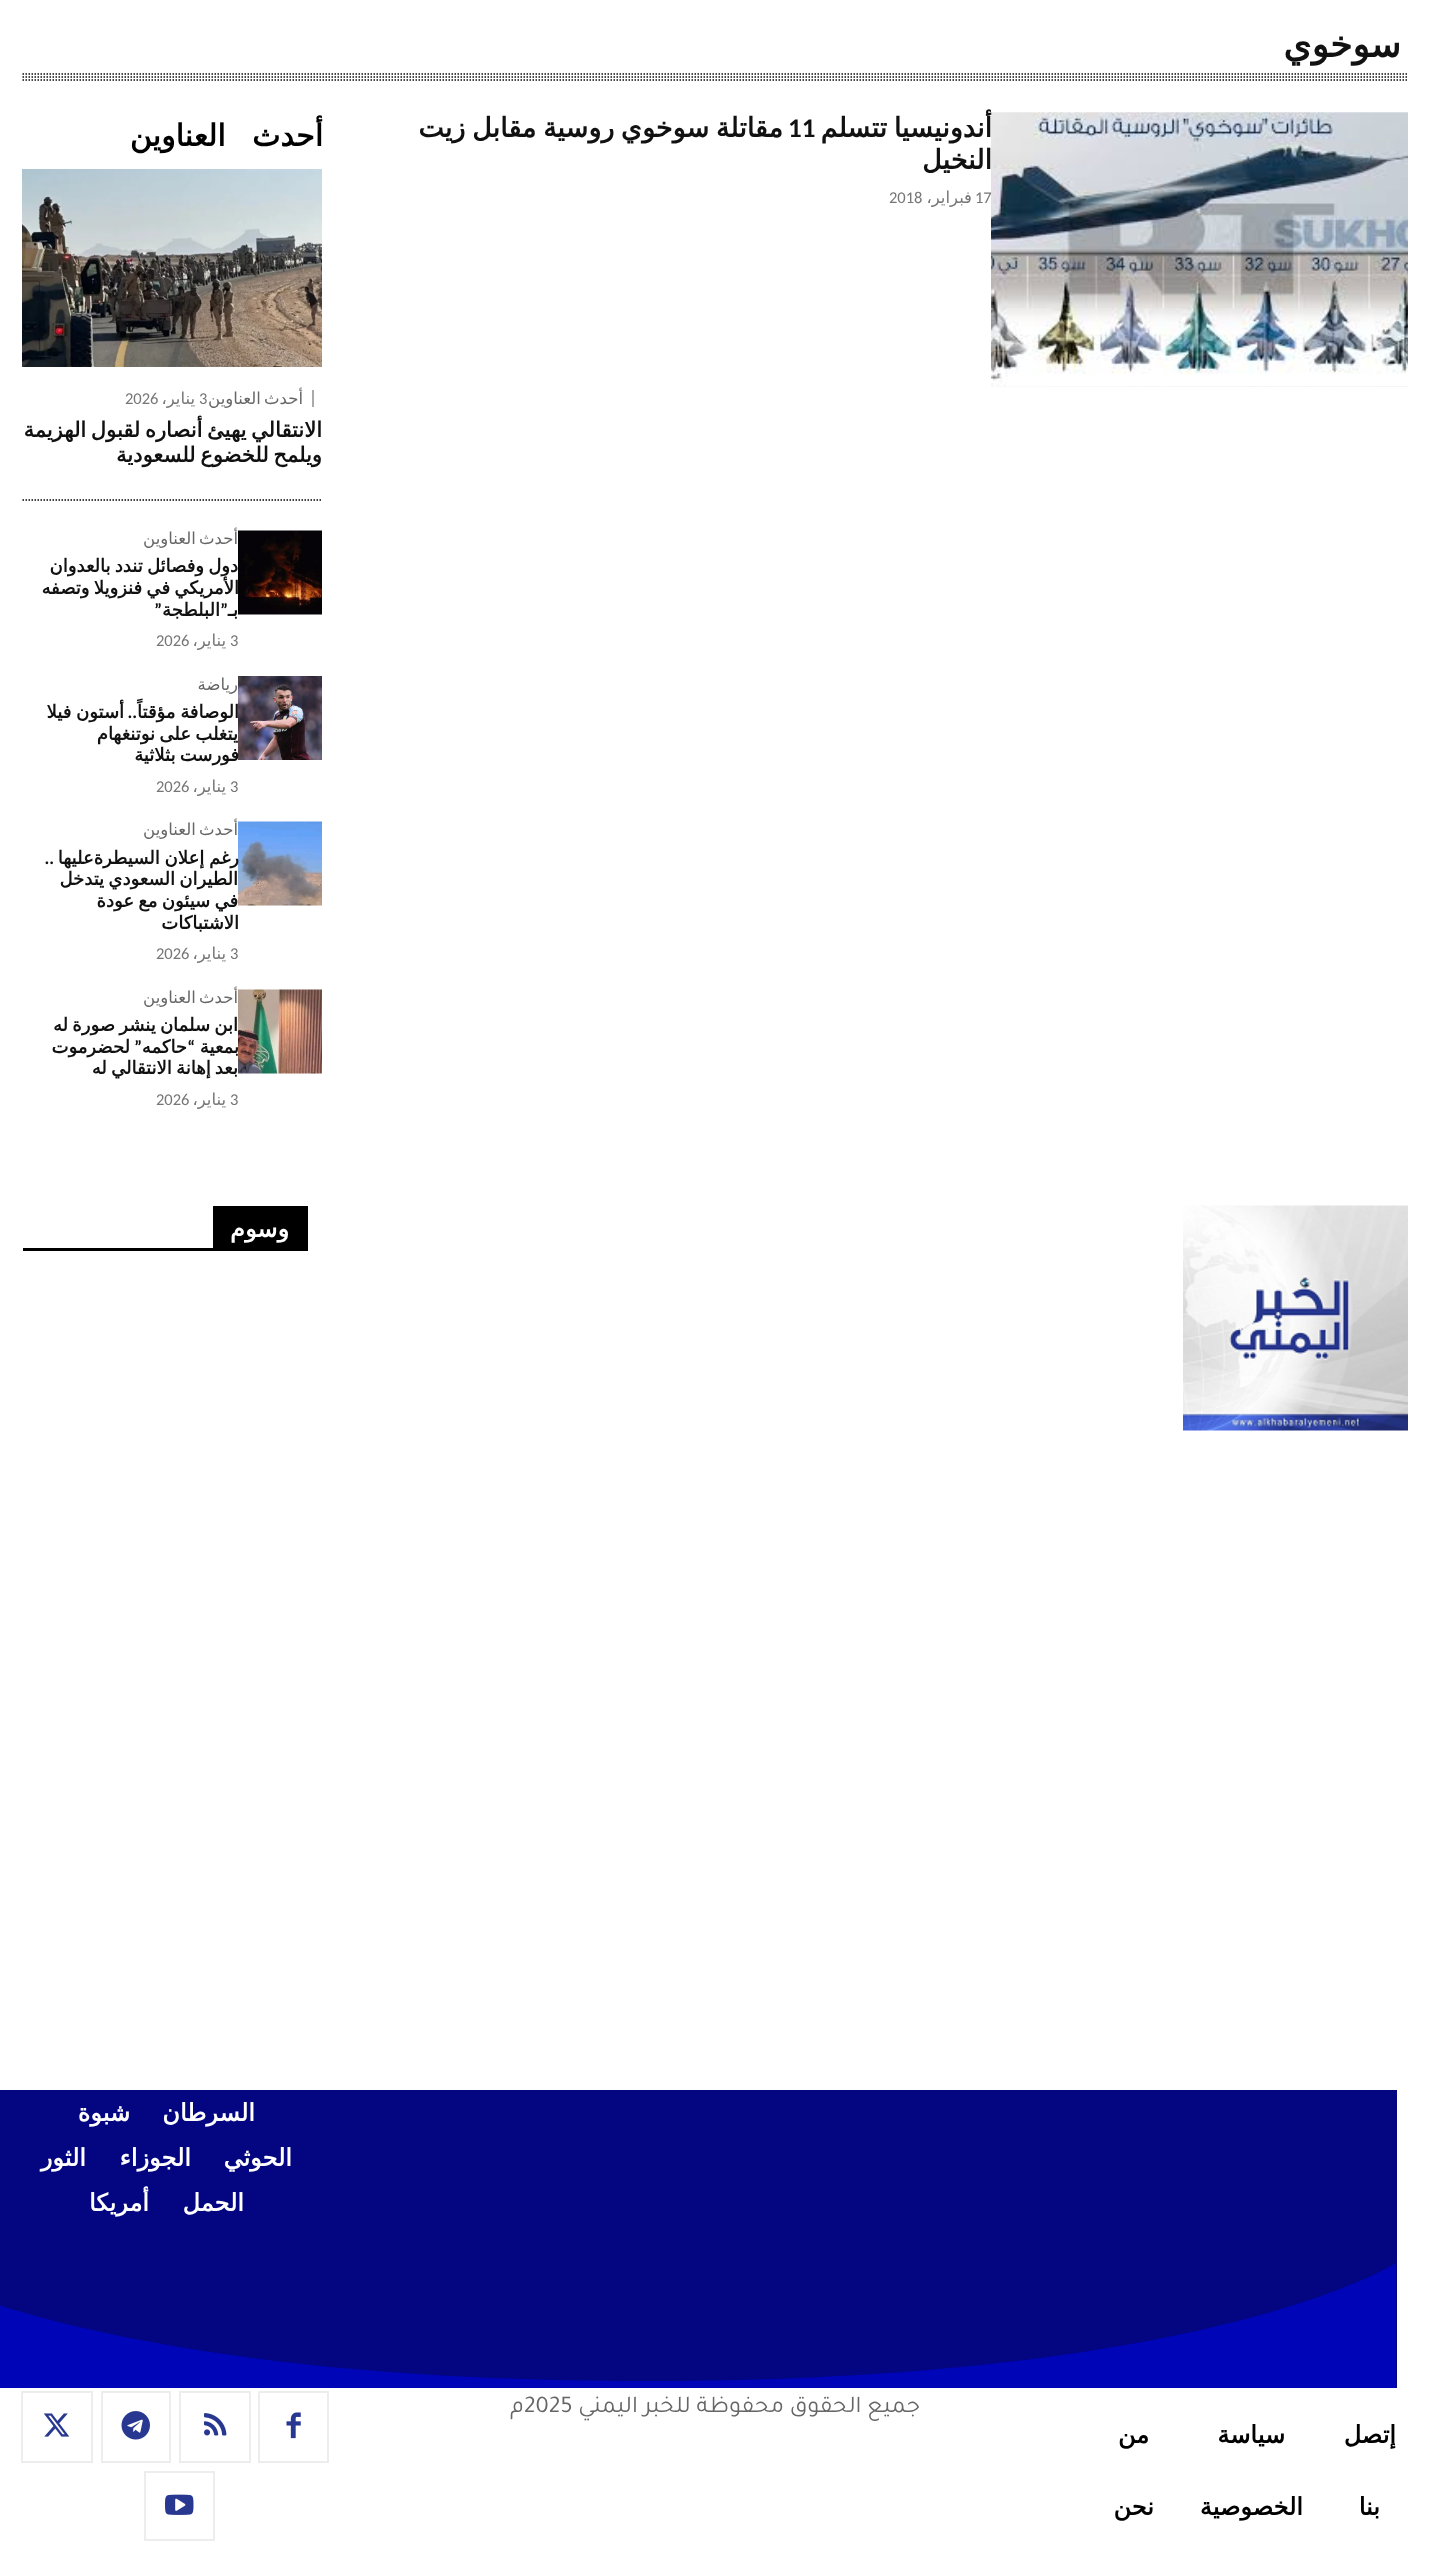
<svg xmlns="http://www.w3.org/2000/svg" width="1430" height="2555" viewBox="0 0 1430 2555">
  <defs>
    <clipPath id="clip1"><path d="M0 2090h1397v298H0z"/></clipPath>
  </defs>
  <rect width="100%" height="100%" fill="#fff"/>
  <path d="M22.5 74H1408.5" fill="none" stroke="#0a0a0a" stroke-width="1.5" stroke-dasharray="1.5 1.5"/>
  <path d="M22.5 77H1408.5" fill="none" stroke="#0a0a0a" stroke-width="1.5" stroke-dasharray="1.5 1.5"/>
  <path d="M22.5 80H1408.5" fill="none" stroke="#0a0a0a" stroke-width="1.5" stroke-dasharray="1.5 1.5"/>
  <image x="991" y="112" width="417" height="275" href="img/1.png"/>
  <path d="M22.5 500H322.5" fill="none" stroke="#000" stroke-width="1.5" stroke-dasharray="1.5 1.5"/>
  <image x="22" y="169" width="300" height="198" href="img/2.png"/>
  <path d="M312 390h2v17H312z" fill="#aaa"/>
  <image x="238" y="530" width="84" height="85" href="img/3.png"/>
  <image x="238" y="676" width="84" height="84" href="img/4.png"/>
  <image x="238" y="821" width="84" height="85" href="img/5.png"/>
  <image x="238" y="989" width="84" height="85" href="img/6.png"/>
  <image x="1183" y="1205" width="225" height="226" href="img/7.png"/>
  <path d="M23 1248h285v3H23z" fill="#000"/>
  <path d="M213 1206h95v42H213z" fill="#000"/>
  <path d="M0 2090h1397v298H0z" fill="#030581"/>
  <g clip-path="url(#clip1)">
    <path d="M1396 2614V2263C1396 2263 1214 2381 646 2381C79 2381-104 2263-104 2263V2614Z" fill="#0006b7"/>
  </g>
  <path d="M259 2392h69v70H259z" fill="none" stroke="#ededed" stroke-width="2"/>
  <image x="286" y="2412" width="15" height="27" href="img/8.png"/>
  <path d="M180 2392h70v70H180z" fill="none" stroke="#ededed" stroke-width="2"/>
  <image x="204" y="2413" width="23" height="23" href="img/9.png"/>
  <path d="M102 2392h68v70H102z" fill="none" stroke="#ededed" stroke-width="2"/>
  <image x="121" y="2411" width="29" height="29" href="img/10.png"/>
  <path d="M22 2392h70v70H22z" fill="none" stroke="#ededed" stroke-width="2"/>
  <image x="43" y="2413" width="27" height="24" href="img/11.png"/>
  <path d="M145 2472h69v68H145z" fill="none" stroke="#ededed" stroke-width="2"/>
  <image x="165" y="2494" width="29" height="21" href="img/12.png"/>
  <text x="1401" y="57" font-family="DejaVu Sans" font-size="36" font-weight="bold" letter-spacing="-1.5" direction="rtl" fill="#111">سوخوي</text>
  <g font-family="DejaVu Sans" font-size="27" font-weight="bold" direction="rtl" fill="#111">
    <text x="992" y="137" word-spacing="-2">أندونيسيا تتسلم</text>
    <text x="783" y="137" word-spacing="-2">مقاتلة سوخوي روسية مقابل زيت</text>
  </g>
  <text x="788" y="137" font-family="Carlito" font-size="27" font-weight="bold" fill="#111">11</text>
  <text x="992" y="169" font-family="DejaVu Sans" font-size="27" font-weight="bold" direction="rtl" fill="#111">النخيل</text>
  <text x="975" y="203" font-family="Carlito" font-size="16.5" fill="#767676">17</text>
  <text x="972" y="203" font-family="DejaVu Sans" font-size="16.5" direction="rtl" fill="#767676">فبراير،</text>
  <text x="889" y="203" font-family="Carlito" font-size="16.5" fill="#767676">2018</text>
  <text x="323" y="146" word-spacing="17" font-family="DejaVu Sans" font-size="30" font-weight="bold" letter-spacing="-1.5" direction="rtl" fill="#000">أحدث العناوين</text>
  <text x="303" y="404" word-spacing="-2" font-family="DejaVu Sans" font-size="16.5" direction="rtl" fill="#666">أحدث العناوين</text>
  <text x="199" y="404" font-family="Carlito" font-size="16.5" fill="#767676">3</text>
  <text x="195" y="404" font-family="DejaVu Sans" font-size="16.5" direction="rtl" fill="#767676">يناير،</text>
  <text x="125" y="404" font-family="Carlito" font-size="16.5" fill="#767676">2026</text>
  <g font-family="DejaVu Sans" font-size="21" font-weight="bold" direction="rtl" fill="#111">
    <text x="322" y="437" word-spacing="-2">الانتقالي يهيئ أنصاره لقبول الهزيمة</text>
    <text x="322" y="462" word-spacing="-2">ويلمح للخضوع للسعودية</text>
  </g>
  <text x="238" y="544" word-spacing="-2" font-family="DejaVu Sans" font-size="16.5" direction="rtl" fill="#666">أحدث العناوين</text>
  <g font-family="DejaVu Sans" font-size="18" font-weight="bold" direction="rtl" fill="#111">
    <text x="238" y="572" word-spacing="-1.5">دول وفصائل تندد بالعدوان</text>
    <text x="239" y="594" word-spacing="-1.5">الأمريكي في فنزويلا وتصفه</text>
  </g>
  <text x="228" y="616" font-family="Carlito" font-size="18" font-weight="bold" direction="rtl" fill="#111">”</text>
  <text x="220" y="616" font-family="DejaVu Sans" font-size="18" font-weight="bold" direction="rtl" fill="#111">البلطجة</text>
  <text x="162" y="616" font-family="Carlito" font-size="18" font-weight="bold" direction="rtl" fill="#111">”</text>
  <text x="238" y="616" font-family="DejaVu Sans" font-size="18" font-weight="bold" direction="rtl" fill="#111">بـ</text>
  <text x="230" y="646" font-family="Carlito" font-size="16.5" fill="#767676">3</text>
  <text x="226" y="646" font-family="DejaVu Sans" font-size="16.5" direction="rtl" fill="#767676">يناير،</text>
  <text x="156" y="646" font-family="Carlito" font-size="16.5" fill="#767676">2026</text>
  <text x="238" y="690" font-family="DejaVu Sans" font-size="16.5" direction="rtl" fill="#666">رياضة</text>
  <text x="239" y="718" word-spacing="-1" font-family="DejaVu Sans" font-size="18" font-weight="bold" direction="rtl" fill="#111">الوصافة مؤقتاً</text>
  <text x="137" y="718" font-family="Carlito" font-size="18" font-weight="bold" direction="rtl" fill="#111">..</text>
  <g font-family="DejaVu Sans" font-size="18" font-weight="bold" direction="rtl" fill="#111">
    <text x="124" y="718" word-spacing="-1">أستون فيلا</text>
    <text x="238" y="740" word-spacing="-1.5">يتغلب على نوتنغهام</text>
    <text x="239" y="761" word-spacing="-1.5">فورست بثلاثية</text>
  </g>
  <text x="230" y="792" font-family="Carlito" font-size="16.5" fill="#767676">3</text>
  <text x="226" y="792" font-family="DejaVu Sans" font-size="16.5" direction="rtl" fill="#767676">يناير،</text>
  <text x="156" y="792" font-family="Carlito" font-size="16.5" fill="#767676">2026</text>
  <text x="238" y="835" word-spacing="-2" font-family="DejaVu Sans" font-size="16.5" direction="rtl" fill="#666">أحدث العناوين</text>
  <text x="239" y="864" word-spacing="-1" font-family="DejaVu Sans" font-size="18" font-weight="bold" direction="rtl" fill="#111">رغم إعلان السيطرةعليها</text>
  <text x="54" y="864" font-family="Carlito" font-size="18" font-weight="bold" direction="rtl" fill="#111">..</text>
  <g font-family="DejaVu Sans" font-size="18" font-weight="bold" direction="rtl" fill="#111">
    <text x="238" y="885" word-spacing="-1.5">الطيران السعودي يتدخل</text>
    <text x="238" y="907" word-spacing="-1.5">في سيئون مع عودة</text>
    <text x="239" y="929">الاشتباكات</text>
  </g>
  <text x="230" y="959" font-family="Carlito" font-size="16.5" fill="#767676">3</text>
  <text x="226" y="959" font-family="DejaVu Sans" font-size="16.5" direction="rtl" fill="#767676">يناير،</text>
  <text x="156" y="959" font-family="Carlito" font-size="16.5" fill="#767676">2026</text>
  <text x="238" y="1003" word-spacing="-2" font-family="DejaVu Sans" font-size="16.5" direction="rtl" fill="#666">أحدث العناوين</text>
  <g font-family="DejaVu Sans" font-size="18" font-weight="bold" direction="rtl" fill="#111">
    <text x="238" y="1031" word-spacing="-1.5">ابن سلمان ينشر صورة له</text>
    <text x="239" y="1053">بمعية</text>
  </g>
  <text x="195" y="1053" font-family="Carlito" font-size="18" font-weight="bold" direction="rtl" fill="#111">“</text>
  <text x="187" y="1053" font-family="DejaVu Sans" font-size="18" font-weight="bold" direction="rtl" fill="#111">حاكمه</text>
  <text x="142" y="1053" font-family="Carlito" font-size="18" font-weight="bold" direction="rtl" fill="#111">”</text>
  <g font-family="DejaVu Sans" font-size="18" font-weight="bold" direction="rtl" fill="#111">
    <text x="130" y="1053">لحضرموت</text>
    <text x="238" y="1074" word-spacing="-1.5">بعد إهانة الانتقالي له</text>
  </g>
  <text x="230" y="1105" font-family="Carlito" font-size="16.5" fill="#767676">3</text>
  <text x="226" y="1105" font-family="DejaVu Sans" font-size="16.5" direction="rtl" fill="#767676">يناير،</text>
  <text x="156" y="1105" font-family="Carlito" font-size="16.5" fill="#767676">2026</text>
  <g font-family="DejaVu Sans" font-size="24" font-weight="bold" direction="rtl" fill="#fff">
    <text x="289" y="1237">وسوم</text>
    <text x="255" y="2121">السرطان</text>
    <text x="130" y="2121">شبوة</text>
    <text x="292" y="2166">الحوثي</text>
    <text x="191" y="2166">الجوزاء</text>
    <text x="86" y="2166">الثور</text>
    <text x="244" y="2211">الحمل</text>
    <text x="149" y="2211">أمريكا</text>
  </g>
  <text x="920" y="2412" font-family="Tajawal" font-size="24" direction="rtl" fill="#666">جميع الحقوق محفوظة للخبر اليمني</text>
  <text x="524" y="2412" font-family="Tajawal" font-size="24" fill="#666">2025</text>
  <text x="524" y="2412" font-family="Tajawal" font-size="24" direction="rtl" fill="#666">م</text>
  <g font-family="DejaVu Sans" font-size="24" font-weight="bold" direction="rtl" fill="#000">
    <text x="1396" y="2443">إتصل</text>
    <text x="1380" y="2515">بنا</text>
    <text x="1285" y="2443">سياسة</text>
    <text x="1303" y="2515">الخصوصية</text>
    <text x="1149" y="2443">من</text>
    <text x="1154" y="2515">نحن</text>
  </g>
</svg>
